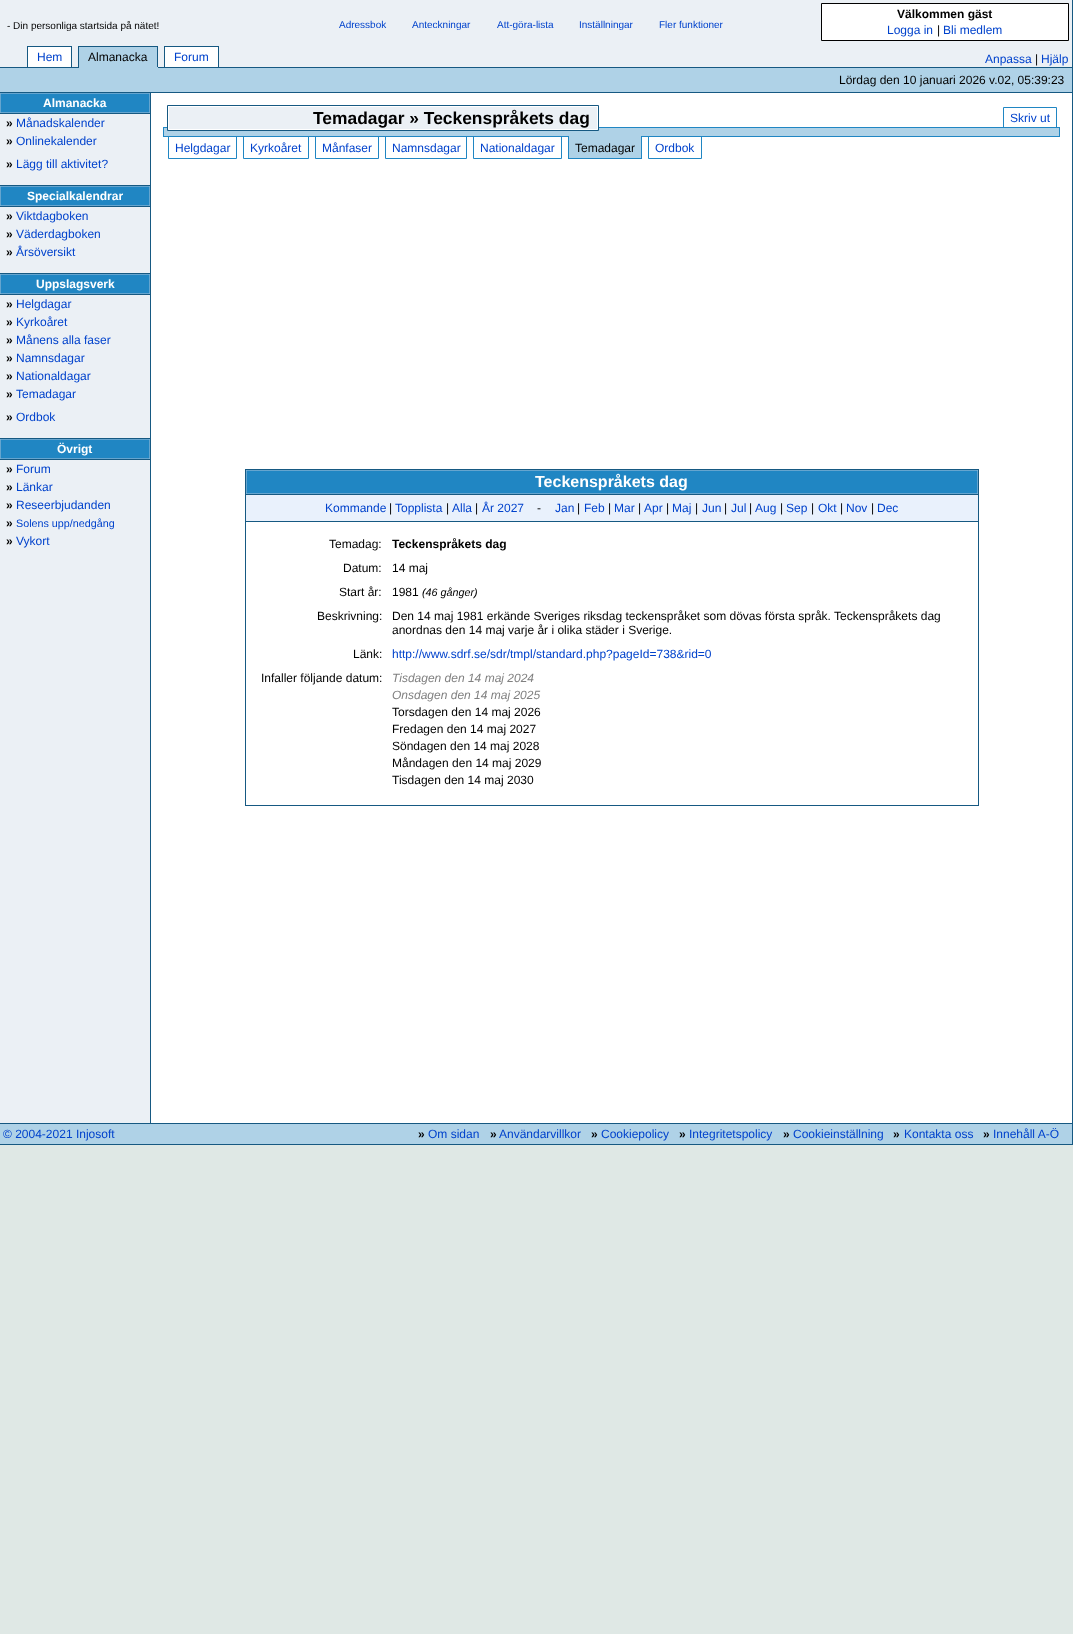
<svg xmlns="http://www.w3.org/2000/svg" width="1073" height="1634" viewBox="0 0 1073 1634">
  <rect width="100%" height="100%" fill="#dfe8e5"/>
  <path d="M0 0h1072v67H0z" fill="#ebf0f5"/>
  <path d="M1072 0h1v1123H1072z" fill="#165982"/>
  <path d="M821.5 3.5h247v37H821.5z" fill="#fff" stroke="#000"/>
  <path d="M0 67h1072v1H0z" fill="#165982"/>
  <path d="M28 47h43v20H28z" fill="#fff"/>
  <path d="M27 46h45v1H27z" fill="#165982"/>
  <path d="M71 46h1v21H71z" fill="#165982"/>
  <path d="M27 46h1v21H27z" fill="#165982"/>
  <path d="M79 47h78v20H79z" fill="#afd2e7"/>
  <path d="M78 46h80v1H78z" fill="#165982"/>
  <path d="M157 46h1v22H157z" fill="#165982"/>
  <path d="M78 67h80v1H78z" fill="#afd2e7"/>
  <path d="M78 46h1v22H78z" fill="#165982"/>
  <path d="M165 47h53v20H165z" fill="#fff"/>
  <path d="M164 46h55v1H164z" fill="#165982"/>
  <path d="M218 46h1v21H218z" fill="#165982"/>
  <path d="M164 46h1v21H164z" fill="#165982"/>
  <path d="M0 68h1072v24H0z" fill="#afd2e7"/>
  <path d="M0 92h1073v1H0z" fill="#165982"/>
  <path d="M0 114h150v1009H0z" fill="#ebf0f5"/>
  <path d="M150 93h1v1030H150z" fill="#165982"/>
  <path d="M0 113h150v1H0z" fill="#165982"/>
  <path d="M0.5 93.5h149v19H0.5z" fill="#2086c3" stroke="#65a5cf"/>
  <path d="M0 185h150v1H0z" fill="#165982"/>
  <path d="M0 206h150v1H0z" fill="#165982"/>
  <path d="M0.5 186.5h149v19H0.5z" fill="#2086c3" stroke="#65a5cf"/>
  <path d="M0 273h150v1H0z" fill="#165982"/>
  <path d="M0 294h150v1H0z" fill="#165982"/>
  <path d="M0.5 274.5h149v19H0.5z" fill="#2086c3" stroke="#65a5cf"/>
  <path d="M0 438h150v1H0z" fill="#165982"/>
  <path d="M0 459h150v1H0z" fill="#165982"/>
  <path d="M0.5 439.5h149v19H0.5z" fill="#2086c3" stroke="#65a5cf"/>
  <path d="M151 93h921v1030H151z" fill="#fff"/>
  <path d="M163 127h897v1H163z" fill="#2086c3"/>
  <path d="M164 128h895v8H164z" fill="#afd2e7"/>
  <path d="M169 107h428v22H169z" fill="#ebf0f5"/>
  <path d="M167.5 105.5h431v25H167.5z" fill="none" stroke="#165982"/>
  <path d="M168.5 106.5h429v23H168.5z" fill="none" stroke="#fff"/>
  <path d="M1003.5 107.5h53v20H1003.5z" fill="none" stroke="#2086c3"/>
  <path d="M1059 128h1v9H1059z" fill="#2086c3"/>
  <path d="M163 136h897v1H163z" fill="#2086c3"/>
  <path d="M163 128h1v9H163z" fill="#2086c3"/>
  <path d="M168.5 136.5h68v22H168.5z" fill="none" stroke="#2086c3"/>
  <path d="M243.5 136.5h65v22H243.5z" fill="none" stroke="#2086c3"/>
  <path d="M315.5 136.5h63v22H315.5z" fill="none" stroke="#2086c3"/>
  <path d="M385.5 136.5h81v22H385.5z" fill="none" stroke="#2086c3"/>
  <path d="M473.5 136.5h88v22H473.5z" fill="none" stroke="#2086c3"/>
  <path d="M569 136h72v22H569z" fill="#afd2e7"/>
  <path d="M641 136h1v23H641z" fill="#2086c3"/>
  <path d="M568 158h74v1H568z" fill="#2086c3"/>
  <path d="M568 136h1v23H568z" fill="#2086c3"/>
  <path d="M648.5 136.5h53v22H648.5z" fill="none" stroke="#2086c3"/>
  <path d="M245 469h734v1H245z" fill="#165982"/>
  <path d="M245 469h1v337H245z" fill="#165982"/>
  <path d="M978 470h1v336H978z" fill="#165982"/>
  <path d="M246 494h733v1H246z" fill="#165982"/>
  <path d="M246.5 470.5h731v23H246.5z" fill="#2086c3" stroke="#65a5cf"/>
  <path d="M246 495h732v26H246z" fill="#e9f1fc"/>
  <path d="M246 521h733v1H246z" fill="#165982"/>
  <path d="M246 805h733v1H246z" fill="#165982"/>
  <path d="M0 1124h1072v20H0z" fill="#afd2e7"/>
  <path d="M0 1123h1073v1H0z" fill="#165982"/>
  <path d="M1072 1123h1v22H1072z" fill="#165982"/>
  <path d="M0 1144h1073v1H0z" fill="#165982"/>
  <text x="7" y="29" font-family="Liberation Sans" font-size="10" fill="#000">- Din personliga startsida på nätet!</text>
  <g font-family="Liberation Sans" font-size="10" fill="#0042cc">
    <text x="339" y="28">Adressbok</text>
    <text x="412" y="28">Anteckningar</text>
    <text x="497" y="28">Att-göra-lista</text>
    <text x="579" y="28">Inställningar</text>
    <text x="659" y="28">Fler funktioner</text>
  </g>
  <text x="897" y="18" font-family="Liberation Sans" font-size="12" font-weight="bold" fill="#000">Välkommen gäst</text>
  <text x="887" y="34" font-family="Liberation Sans" font-size="12" fill="#0042cc">Logga in</text>
  <text x="937" y="34" font-family="Liberation Sans" font-size="12" fill="#000">|</text>
  <g font-family="Liberation Sans" font-size="12" fill="#0042cc">
    <text x="943" y="34">Bli medlem</text>
    <text x="37" y="61">Hem</text>
  </g>
  <text x="88" y="61" font-family="Liberation Sans" font-size="12" fill="#000">Almanacka</text>
  <g font-family="Liberation Sans" font-size="12" fill="#0042cc">
    <text x="174" y="61">Forum</text>
    <text x="985" y="63">Anpassa</text>
  </g>
  <text x="1035" y="63" font-family="Liberation Sans" font-size="12" fill="#000">|</text>
  <text x="1041" y="63" font-family="Liberation Sans" font-size="12" fill="#0042cc">Hjälp</text>
  <text x="839" y="84" font-family="Liberation Sans" font-size="12" fill="#000">Lördag den 10 januari 2026 v.02, 05:39:23</text>
  <text x="43" y="107" font-family="Liberation Sans" font-size="12" font-weight="bold" fill="#fff">Almanacka</text>
  <text x="6" y="127" font-family="Liberation Sans" font-size="12" font-weight="bold" fill="#000">»</text>
  <text x="16" y="127" font-family="Liberation Sans" font-size="12" fill="#0042cc">Månadskalender</text>
  <text x="6" y="145" font-family="Liberation Sans" font-size="12" font-weight="bold" fill="#000">»</text>
  <text x="16" y="145" font-family="Liberation Sans" font-size="12" fill="#0042cc">Onlinekalender</text>
  <text x="6" y="168" font-family="Liberation Sans" font-size="12" font-weight="bold" fill="#000">»</text>
  <text x="16" y="168" font-family="Liberation Sans" font-size="12" fill="#0042cc">Lägg till aktivitet?</text>
  <text x="27" y="200" font-family="Liberation Sans" font-size="12" font-weight="bold" fill="#fff">Specialkalendrar</text>
  <text x="6" y="220" font-family="Liberation Sans" font-size="12" font-weight="bold" fill="#000">»</text>
  <text x="16" y="220" font-family="Liberation Sans" font-size="12" fill="#0042cc">Viktdagboken</text>
  <text x="6" y="238" font-family="Liberation Sans" font-size="12" font-weight="bold" fill="#000">»</text>
  <text x="16" y="238" font-family="Liberation Sans" font-size="12" fill="#0042cc">Väderdagboken</text>
  <text x="6" y="256" font-family="Liberation Sans" font-size="12" font-weight="bold" fill="#000">»</text>
  <text x="16" y="256" font-family="Liberation Sans" font-size="12" fill="#0042cc">Årsöversikt</text>
  <text x="36" y="288" font-family="Liberation Sans" font-size="12" font-weight="bold" fill="#fff">Uppslagsverk</text>
  <text x="6" y="308" font-family="Liberation Sans" font-size="12" font-weight="bold" fill="#000">»</text>
  <text x="16" y="308" font-family="Liberation Sans" font-size="12" fill="#0042cc">Helgdagar</text>
  <text x="6" y="326" font-family="Liberation Sans" font-size="12" font-weight="bold" fill="#000">»</text>
  <text x="16" y="326" font-family="Liberation Sans" font-size="12" fill="#0042cc">Kyrkoåret</text>
  <text x="6" y="344" font-family="Liberation Sans" font-size="12" font-weight="bold" fill="#000">»</text>
  <text x="16" y="344" font-family="Liberation Sans" font-size="12" fill="#0042cc">Månens alla faser</text>
  <text x="6" y="362" font-family="Liberation Sans" font-size="12" font-weight="bold" fill="#000">»</text>
  <text x="16" y="362" font-family="Liberation Sans" font-size="12" fill="#0042cc">Namnsdagar</text>
  <text x="6" y="380" font-family="Liberation Sans" font-size="12" font-weight="bold" fill="#000">»</text>
  <text x="16" y="380" font-family="Liberation Sans" font-size="12" fill="#0042cc">Nationaldagar</text>
  <text x="6" y="398" font-family="Liberation Sans" font-size="12" font-weight="bold" fill="#000">»</text>
  <text x="16" y="398" font-family="Liberation Sans" font-size="12" fill="#0042cc">Temadagar</text>
  <text x="6" y="421" font-family="Liberation Sans" font-size="12" font-weight="bold" fill="#000">»</text>
  <text x="16" y="421" font-family="Liberation Sans" font-size="12" fill="#0042cc">Ordbok</text>
  <text x="57" y="453" font-family="Liberation Sans" font-size="12" font-weight="bold" fill="#fff">Övrigt</text>
  <text x="6" y="473" font-family="Liberation Sans" font-size="12" font-weight="bold" fill="#000">»</text>
  <text x="16" y="473" font-family="Liberation Sans" font-size="12" fill="#0042cc">Forum</text>
  <text x="6" y="491" font-family="Liberation Sans" font-size="12" font-weight="bold" fill="#000">»</text>
  <text x="16" y="491" font-family="Liberation Sans" font-size="12" fill="#0042cc">Länkar</text>
  <text x="6" y="509" font-family="Liberation Sans" font-size="12" font-weight="bold" fill="#000">»</text>
  <text x="16" y="509" font-family="Liberation Sans" font-size="12" fill="#0042cc">Reseerbjudanden</text>
  <text x="6" y="527" font-family="Liberation Sans" font-size="12" font-weight="bold" fill="#000">»</text>
  <text x="16" y="527" font-family="Liberation Sans" font-size="10.75" fill="#0042cc">Solens upp/nedgång</text>
  <text x="6" y="545" font-family="Liberation Sans" font-size="12" font-weight="bold" fill="#000">»</text>
  <text x="16" y="545" font-family="Liberation Sans" font-size="12" fill="#0042cc">Vykort</text>
  <text x="313" y="124" font-family="Liberation Sans" font-size="17.4" font-weight="bold" fill="#000">Temadagar » Teckenspråkets dag</text>
  <g font-family="Liberation Sans" font-size="12" fill="#0042cc">
    <text x="1010" y="122">Skriv ut</text>
    <text x="175" y="152">Helgdagar</text>
    <text x="250" y="152">Kyrkoåret</text>
    <text x="322" y="152">Månfaser</text>
    <text x="392" y="152">Namnsdagar</text>
    <text x="480" y="152">Nationaldagar</text>
  </g>
  <text x="575" y="152" font-family="Liberation Sans" font-size="12" fill="#000">Temadagar</text>
  <text x="655" y="152" font-family="Liberation Sans" font-size="12" fill="#0042cc">Ordbok</text>
  <text x="535" y="487" font-family="Liberation Sans" font-size="16" font-weight="bold" fill="#fff">Teckenspråkets dag</text>
  <text x="325" y="512" font-family="Liberation Sans" font-size="12" fill="#0042cc">Kommande</text>
  <text x="389" y="512" font-family="Liberation Sans" font-size="12" fill="#000">|</text>
  <text x="395" y="512" font-family="Liberation Sans" font-size="12" fill="#0042cc">Topplista</text>
  <text x="446" y="512" font-family="Liberation Sans" font-size="12" fill="#000">|</text>
  <text x="452" y="512" font-family="Liberation Sans" font-size="12" fill="#0042cc">Alla</text>
  <text x="475" y="512" font-family="Liberation Sans" font-size="12" fill="#000">|</text>
  <text x="482" y="512" font-family="Liberation Sans" font-size="12" fill="#0042cc">År 2027</text>
  <text x="537" y="512" font-family="Liberation Sans" font-size="12" fill="#000">-</text>
  <text x="555" y="512" font-family="Liberation Sans" font-size="12" fill="#0042cc">Jan</text>
  <text x="577" y="512" font-family="Liberation Sans" font-size="12" fill="#000">|</text>
  <text x="584" y="512" font-family="Liberation Sans" font-size="12" fill="#0042cc">Feb</text>
  <text x="608" y="512" font-family="Liberation Sans" font-size="12" fill="#000">|</text>
  <text x="614" y="512" font-family="Liberation Sans" font-size="12" fill="#0042cc">Mar</text>
  <text x="638" y="512" font-family="Liberation Sans" font-size="12" fill="#000">|</text>
  <text x="644" y="512" font-family="Liberation Sans" font-size="12" fill="#0042cc">Apr</text>
  <text x="666" y="512" font-family="Liberation Sans" font-size="12" fill="#000">|</text>
  <text x="672" y="512" font-family="Liberation Sans" font-size="12" fill="#0042cc">Maj</text>
  <text x="695" y="512" font-family="Liberation Sans" font-size="12" fill="#000">|</text>
  <text x="702" y="512" font-family="Liberation Sans" font-size="12" fill="#0042cc">Jun</text>
  <text x="724" y="512" font-family="Liberation Sans" font-size="12" fill="#000">|</text>
  <text x="731" y="512" font-family="Liberation Sans" font-size="12" fill="#0042cc">Jul</text>
  <text x="749" y="512" font-family="Liberation Sans" font-size="12" fill="#000">|</text>
  <text x="755" y="512" font-family="Liberation Sans" font-size="12" fill="#0042cc">Aug</text>
  <text x="780" y="512" font-family="Liberation Sans" font-size="12" fill="#000">|</text>
  <text x="786" y="512" font-family="Liberation Sans" font-size="12" fill="#0042cc">Sep</text>
  <text x="811" y="512" font-family="Liberation Sans" font-size="12" fill="#000">|</text>
  <text x="818" y="512" font-family="Liberation Sans" font-size="12" fill="#0042cc">Okt</text>
  <text x="840" y="512" font-family="Liberation Sans" font-size="12" fill="#000">|</text>
  <text x="846" y="512" font-family="Liberation Sans" font-size="12" fill="#0042cc">Nov</text>
  <text x="871" y="512" font-family="Liberation Sans" font-size="12" fill="#000">|</text>
  <text x="877" y="512" font-family="Liberation Sans" font-size="12" fill="#0042cc">Dec</text>
  <text x="329" y="548" font-family="Liberation Sans" font-size="12" fill="#000">Temadag:</text>
  <text x="392" y="548" font-family="Liberation Sans" font-size="12" font-weight="bold" fill="#000">Teckenspråkets dag</text>
  <g font-family="Liberation Sans" font-size="12" fill="#000">
    <text x="343" y="572">Datum:</text>
    <text x="392" y="572">14 maj</text>
    <text x="339" y="596">Start år:</text>
    <text x="392" y="596">1981</text>
  </g>
  <text x="422" y="596" font-family="Liberation Sans" font-size="10.75" font-style="italic" fill="#000">(46 gånger)</text>
  <g font-family="Liberation Sans" font-size="12" fill="#000">
    <text x="317" y="620">Beskrivning:</text>
    <text x="392" y="620">Den 14 maj 1981 erkände Sveriges riksdag teckenspråket som dövas första språk. Teckenspråkets dag</text>
    <text x="392" y="634">anordnas den 14 maj varje år i olika städer i Sverige.</text>
    <text x="353" y="658">Länk:</text>
  </g>
  <text x="392" y="658" font-family="Liberation Sans" font-size="12" fill="#0042cc">http://www.sdrf.se/sdr/tmpl/standard.php?pageId=738&amp;rid=0</text>
  <text x="261" y="682" font-family="Liberation Sans" font-size="12" fill="#000">Infaller följande datum:</text>
  <g font-family="Liberation Sans" font-size="12" font-style="italic" fill="#808080">
    <text x="392" y="682">Tisdagen den 14 maj 2024</text>
    <text x="392" y="699">Onsdagen den 14 maj 2025</text>
  </g>
  <g font-family="Liberation Sans" font-size="12" fill="#000">
    <text x="392" y="716">Torsdagen den 14 maj 2026</text>
    <text x="392" y="733">Fredagen den 14 maj 2027</text>
    <text x="392" y="750">Söndagen den 14 maj 2028</text>
    <text x="392" y="767">Måndagen den 14 maj 2029</text>
    <text x="392" y="784">Tisdagen den 14 maj 2030</text>
  </g>
  <text x="3" y="1138" font-family="Liberation Sans" font-size="12" fill="#0042cc">© 2004-2021 Injosoft</text>
  <text x="418" y="1138" font-family="Liberation Sans" font-size="12" font-weight="bold" fill="#000">»</text>
  <text x="428" y="1138" font-family="Liberation Sans" font-size="12" fill="#0042cc">Om sidan</text>
  <text x="490" y="1138" font-family="Liberation Sans" font-size="12" font-weight="bold" fill="#000">»</text>
  <text x="499" y="1138" font-family="Liberation Sans" font-size="12" fill="#0042cc">Användarvillkor</text>
  <text x="591" y="1138" font-family="Liberation Sans" font-size="12" font-weight="bold" fill="#000">»</text>
  <text x="601" y="1138" font-family="Liberation Sans" font-size="12" fill="#0042cc">Cookiepolicy</text>
  <text x="679" y="1138" font-family="Liberation Sans" font-size="12" font-weight="bold" fill="#000">»</text>
  <text x="689" y="1138" font-family="Liberation Sans" font-size="12" fill="#0042cc">Integritetspolicy</text>
  <text x="783" y="1138" font-family="Liberation Sans" font-size="12" font-weight="bold" fill="#000">»</text>
  <text x="793" y="1138" font-family="Liberation Sans" font-size="12" fill="#0042cc">Cookieinställning</text>
  <text x="893" y="1138" font-family="Liberation Sans" font-size="12" font-weight="bold" fill="#000">»</text>
  <text x="904" y="1138" font-family="Liberation Sans" font-size="12" fill="#0042cc">Kontakta oss</text>
  <text x="983" y="1138" font-family="Liberation Sans" font-size="12" font-weight="bold" fill="#000">»</text>
  <text x="993" y="1138" font-family="Liberation Sans" font-size="12" fill="#0042cc">Innehåll A-Ö</text>
</svg>
